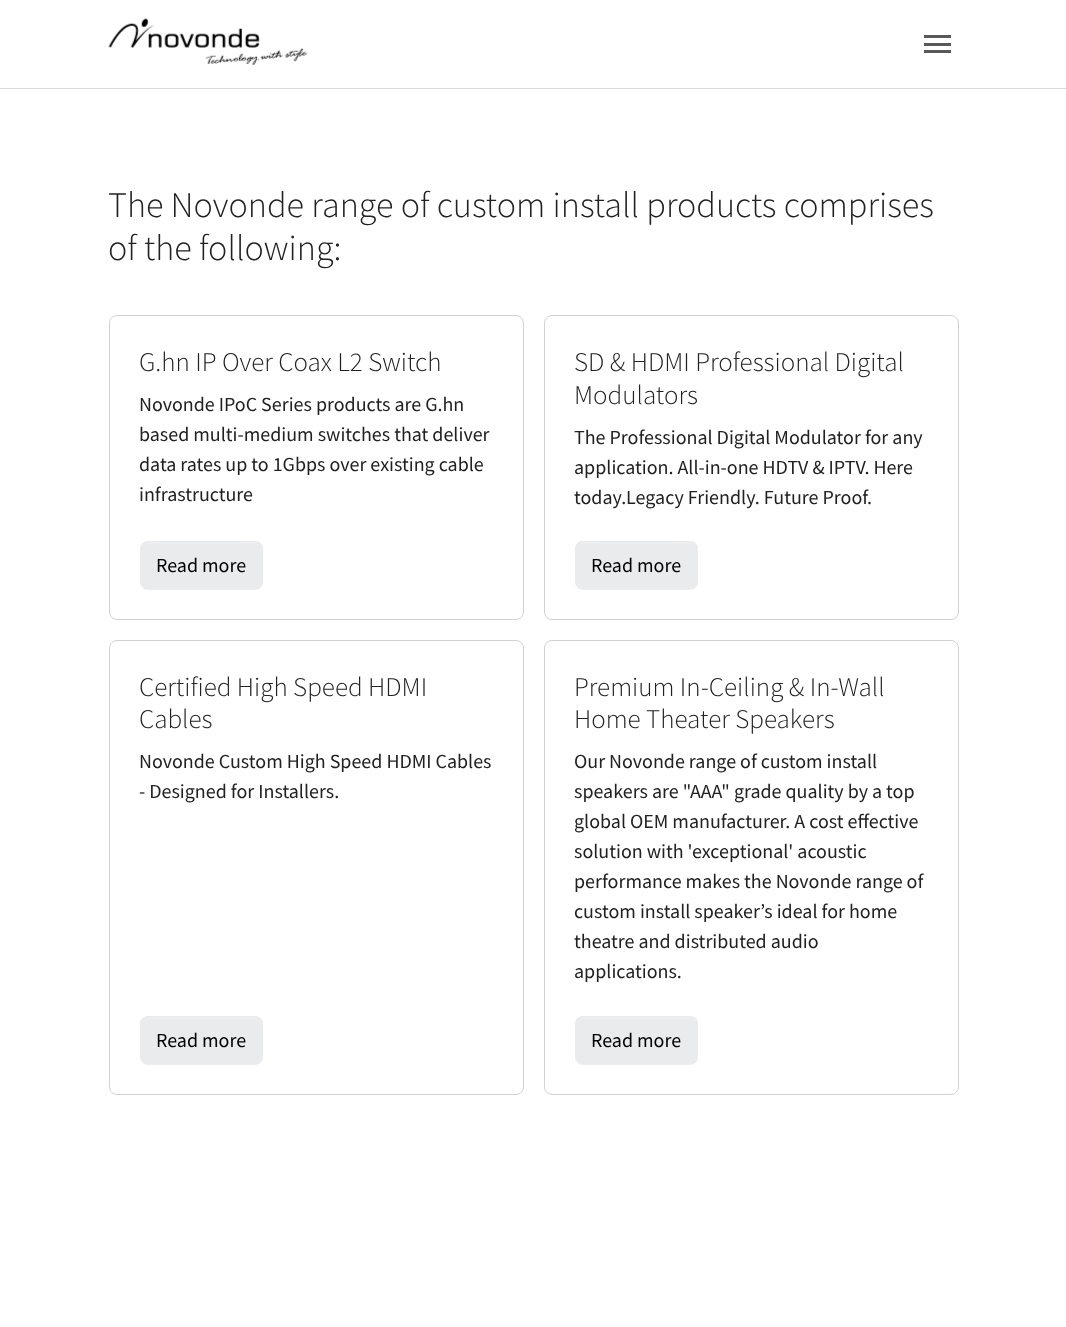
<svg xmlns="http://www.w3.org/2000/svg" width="1066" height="1327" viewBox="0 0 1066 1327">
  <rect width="100%" height="100%" fill="#fff"/>
  <path d="M0 88h1066v1H0z" fill="#d9d9d9"/>
  <image x="108" y="18" width="200" height="47" href="img/1.png"/>
  <path d="M924 43h27v3H924z" fill="#595959"/>
  <path d="M924 35h27v3H924z" fill="#595959"/>
  <path d="M924 50h27v3H924z" fill="#595959"/>
  <rect x="109.5" y="315.5" width="414" height="304" rx="7.5" fill="none" stroke="#d2d2d2"/>
  <rect x="140" y="543" width="123" height="47" rx="8" fill="#00000012" filter="blur(0.5px)"/>
  <rect x="140" y="541" width="123" height="48" rx="8" fill="#eaebec"/>
  <path d="M148 544H255C258 544 261 547 261 550C261 539 243 543 237 543H165C159 543 141 539 141 550C141 547 144 544 148 544Z" fill="#edeeef"/>
  <rect x="140.5" y="541.5" width="122" height="47" rx="7.5" fill="none" stroke="#eaebec"/>
  <rect x="544.5" y="315.5" width="414" height="304" rx="7.5" fill="none" stroke="#d2d2d2"/>
  <rect x="575" y="543" width="123" height="47" rx="8" fill="#00000012" filter="blur(0.5px)"/>
  <rect x="575" y="541" width="123" height="48" rx="8" fill="#eaebec"/>
  <path d="M582 544H690C693 544 696 547 696 550C696 539 678 543 672 543H600C594 543 576 539 576 550C576 547 579 544 582 544Z" fill="#edeeef"/>
  <rect x="575.5" y="541.5" width="122" height="47" rx="7.5" fill="none" stroke="#eaebec"/>
  <rect x="109.5" y="640.5" width="414" height="454" rx="7.5" fill="none" stroke="#d2d2d2"/>
  <rect x="140" y="1018" width="123" height="47" rx="8" fill="#00000012" filter="blur(0.5px)"/>
  <rect x="140" y="1016" width="123" height="48" rx="8" fill="#eaebec"/>
  <path d="M148 1019H255C258 1019 261 1022 261 1025C261 1014 243 1018 237 1018H165C159 1018 141 1014 141 1025C141 1022 144 1019 148 1019Z" fill="#edeeef"/>
  <rect x="140.5" y="1016.5" width="122" height="47" rx="7.5" fill="none" stroke="#eaebec"/>
  <rect x="544.5" y="640.5" width="414" height="454" rx="7.5" fill="none" stroke="#d2d2d2"/>
  <rect x="575" y="1018" width="123" height="47" rx="8" fill="#00000012" filter="blur(0.5px)"/>
  <rect x="575" y="1016" width="123" height="48" rx="8" fill="#eaebec"/>
  <path d="M582 1019H690C693 1019 696 1022 696 1025C696 1014 678 1018 672 1018H600C594 1018 576 1014 576 1025C576 1022 579 1019 582 1019Z" fill="#edeeef"/>
  <rect x="575.5" y="1016.5" width="122" height="47" rx="7.5" fill="none" stroke="#eaebec"/>
  <g font-family="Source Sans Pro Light" font-size="36.1" font-weight="300" fill="#212121">
    <text x="108" y="217">The Novonde range of custom install products comprises</text>
    <text x="108" y="260">of the following:</text>
  </g>
  <text x="139" y="371" font-family="Source Sans Pro Light" font-size="27" font-weight="300" fill="#212121">G.hn IP Over Coax L2 Switch</text>
  <g font-family="Source Sans Pro" font-size="20" fill="#212121">
    <text x="139" y="411">Novonde IPoC Series products are G.hn</text>
    <text x="139" y="441">based multi-medium switches that deliver</text>
    <text x="139" y="471">data rates up to 1Gbps over existing cable</text>
    <text x="139" y="501">infrastructure</text>
  </g>
  <text x="156" y="572" font-family="Source Sans Pro" font-size="20" fill="#000">Read more</text>
  <g font-family="Source Sans Pro Light" font-size="27" font-weight="300" fill="#212121">
    <text x="574" y="371">SD &amp; HDMI Professional Digital</text>
    <text x="574" y="404">Modulators</text>
  </g>
  <g font-family="Source Sans Pro" font-size="20" fill="#212121">
    <text x="574" y="444">The Professional Digital Modulator for any</text>
    <text x="574" y="474">application. All-in-one HDTV &amp; IPTV. Here</text>
    <text x="574" y="504">today.Legacy Friendly. Future Proof.</text>
  </g>
  <text x="591" y="572" font-family="Source Sans Pro" font-size="20" fill="#000">Read more</text>
  <g font-family="Source Sans Pro Light" font-size="27" font-weight="300" fill="#212121">
    <text x="139" y="696">Certified High Speed HDMI</text>
    <text x="139" y="728">Cables</text>
  </g>
  <g font-family="Source Sans Pro" font-size="20" fill="#212121">
    <text x="139" y="768">Novonde Custom High Speed HDMI Cables</text>
    <text x="139" y="798">- Designed for Installers.</text>
  </g>
  <text x="156" y="1047" font-family="Source Sans Pro" font-size="20" fill="#000">Read more</text>
  <g font-family="Source Sans Pro Light" font-size="27" font-weight="300" fill="#212121">
    <text x="574" y="696">Premium In-Ceiling &amp; In-Wall</text>
    <text x="574" y="728">Home Theater Speakers</text>
  </g>
  <g font-family="Source Sans Pro" font-size="20" fill="#212121">
    <text x="574" y="768">Our Novonde range of custom install</text>
    <text x="574" y="798">speakers are "AAA" grade quality by a top</text>
    <text x="574" y="828">global OEM manufacturer. A cost effective</text>
    <text x="574" y="858">solution with 'exceptional' acoustic</text>
    <text x="574" y="888">performance makes the Novonde range of</text>
    <text x="574" y="918">custom install speaker’s ideal for home</text>
    <text x="574" y="948">theatre and distributed audio</text>
    <text x="574" y="978">applications.</text>
  </g>
  <text x="591" y="1047" font-family="Source Sans Pro" font-size="20" fill="#000">Read more</text>
</svg>
